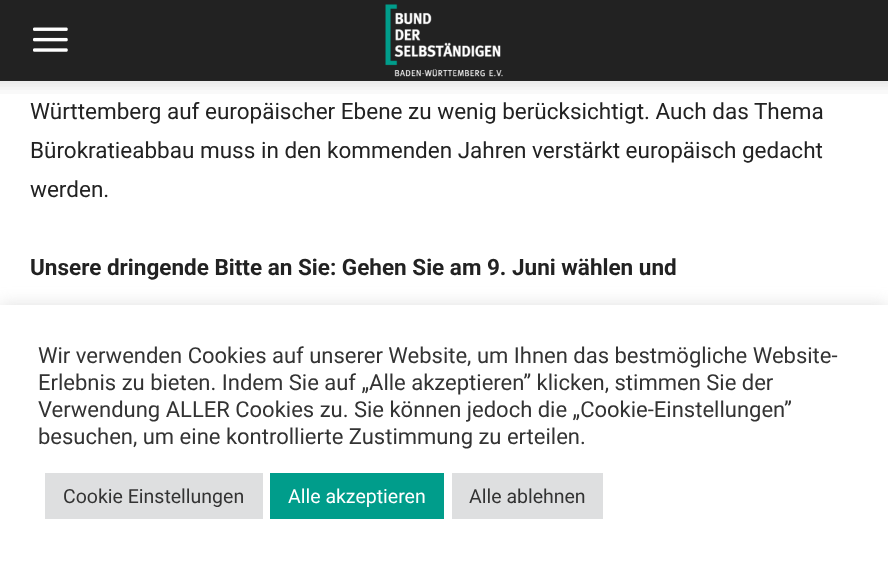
<svg xmlns="http://www.w3.org/2000/svg" width="888" height="563" viewBox="0 0 888 563">
  <rect width="100%" height="100%" fill="#fff"/>
  <path d="M0 0h888v81H0z" fill="#222"/>
  <image x="33" y="27" width="35" height="25" href="img/1.png"/>
  <image x="385" y="4" width="118" height="73" href="img/2.png"/>
  <image x="0" y="81" width="888" height="13" href="img/3.png"/>
  <path d="M0 303h888v260H0z" fill="#acabab4d" filter="blur(7.5px)"/>
  <path d="M0 305h888v258H0z" fill="#fff"/>
  <path d="M45 473h218v46H45z" fill="#dedfe0"/>
  <path d="M270 473h174v46H270z" fill="#009d8b"/>
  <path d="M452 473h151v46H452z" fill="#dedfe0"/>
  <g font-family="Roboto" font-size="22.5" fill="#222">
    <text x="30" y="119">Württemberg auf europäischer Ebene zu wenig berücksichtigt. Auch das Thema</text>
    <text x="30" y="158">Bürokratieabbau muss in den kommenden Jahren verstärkt europäisch gedacht</text>
    <text x="30" y="197">werden.</text>
  </g>
  <text x="30" y="275" font-family="Roboto" font-size="22.5" font-weight="bold" fill="#222">Unsere dringende Bitte an Sie: Gehen Sie am 9. Juni wählen und</text>
  <g font-family="Roboto" font-size="22" fill="#333">
    <text x="38" y="363">Wir verwenden Cookies auf unserer Website, um Ihnen das bestmögliche Website-</text>
    <text x="38" y="390">Erlebnis zu bieten. Indem Sie auf „Alle akzeptieren” klicken, stimmen Sie der</text>
    <text x="38" y="417">Verwendung ALLER Cookies zu. Sie können jedoch die „Cookie-Einstellungen”</text>
    <text x="38" y="444">besuchen, um eine kontrollierte Zustimmung zu erteilen.</text>
  </g>
  <text x="63" y="503" font-family="Roboto" font-size="19.5" fill="#333">Cookie Einstellungen</text>
  <text x="288" y="503" font-family="Roboto" font-size="19.5" fill="#fff">Alle akzeptieren</text>
  <text x="469" y="503" font-family="Roboto" font-size="19.5" fill="#333">Alle ablehnen</text>
</svg>
